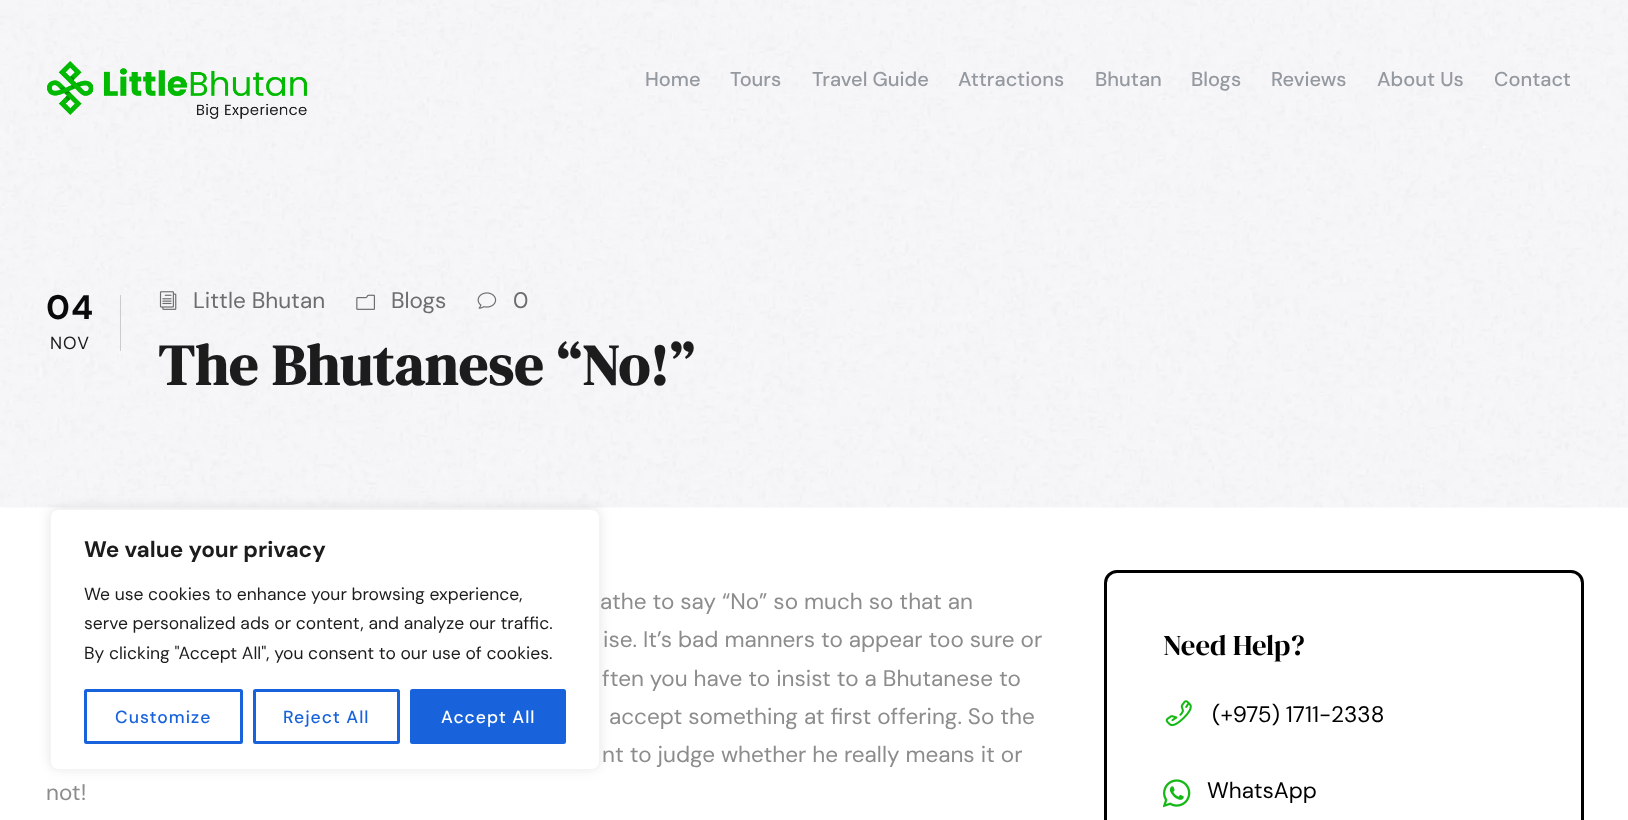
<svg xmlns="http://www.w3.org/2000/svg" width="1628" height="820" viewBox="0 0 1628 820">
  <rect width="100%" height="100%" fill="#fff"/>
  <image x="0" y="0" width="1628" height="508" href="img/2.png"/>
  <image x="47" y="61" width="260" height="58" href="img/1.png"/>
  <path d="M120 295h1v56H120z" fill="#ccc"/>
  <image x="159" y="291" width="18" height="19" href="img/3.png"/>
  <image x="356" y="294" width="19" height="16" href="img/4.png"/>
  <image x="477" y="292" width="20" height="17" href="img/5.png"/>
  <rect x="1105.5" y="571.5" width="477" height="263" rx="11.5" fill="none" stroke="#000" stroke-width="3"/>
  <image x="1165" y="700" width="27" height="27" href="img/6.png"/>
  <image x="1163" y="779" width="28" height="29" href="img/7.png"/>
  <rect x="50" y="508" width="550" height="261" rx="8" fill="#acabab4d" filter="blur(6px)"/>
  <rect x="50.5" y="509.5" width="549" height="260" rx="7.5" fill="#fff" stroke="#f4f4f4"/>
  <rect x="85.5" y="690.5" width="156" height="52" rx="1" fill="none" stroke="#1863dc" stroke-width="3"/>
  <rect x="254.5" y="690.5" width="144" height="52" rx="1" fill="none" stroke="#1863dc" stroke-width="3"/>
  <rect x="411.5" y="690.5" width="153" height="52" rx="1" fill="#1863dc" stroke="#1863dc" stroke-width="3"/>
  <g font-family="DM Sans" font-size="20" font-weight="500" fill="#94999f">
    <text x="645" y="86">Home</text>
    <text x="730" y="86">Tours</text>
    <text x="812" y="86">Travel Guide</text>
    <text x="958" y="86">Attractions</text>
    <text x="1095" y="86">Bhutan</text>
    <text x="1191" y="86">Blogs</text>
    <text x="1271" y="86">Reviews</text>
    <text x="1377" y="86">About Us</text>
    <text x="1494" y="86">Contact</text>
  </g>
  <text x="46" y="319" font-family="DM Sans" font-size="34" font-weight="bold" letter-spacing="1" fill="#0a0a0a">04</text>
  <text x="50" y="349" font-family="DM Sans" font-size="17.5" letter-spacing="1" fill="#1c1c1c">NOV</text>
  <g font-family="DM Sans" font-size="22.5" fill="#6d6d6d">
    <text x="193" y="308">Little Bhutan</text>
    <text x="391" y="308">Blogs</text>
    <text x="513" y="308">0</text>
  </g>
  <text x="158" y="385" font-family="DM Serif Display" font-size="57.5" font-weight="bold" letter-spacing="0.6" fill="#1c1c1c">The Bhutanese “No!”</text>
  <g font-family="DM Sans" font-size="22.5" fill="#8c8c8c">
    <text x="600" y="609">athe to say “No” so much so that an</text>
    <text x="603" y="647">ise. It’s bad manners to appear too sure or</text>
    <text x="602" y="686">ften you have to insist to a Bhutanese to</text>
    <text x="609" y="724">accept something at first offering. So the</text>
    <text x="602" y="762">nt to judge whether he really means it or</text>
    <text x="46" y="800">not!</text>
  </g>
  <text x="1163" y="655" font-family="DM Serif Display" font-size="28.75" fill="#000">Need Help?</text>
  <g font-family="DM Sans" font-size="22.5" fill="#000">
    <text x="1212" y="722">(+975) 1711-2338</text>
    <text x="1207" y="798">WhatsApp</text>
  </g>
  <text x="84" y="557" font-family="DM Sans" font-size="22.5" font-weight="bold" fill="#1c1c1c">We value your privacy</text>
  <g font-family="DM Sans" font-size="17.5" fill="#1c1c1c">
    <text x="84" y="600">We use cookies to enhance your browsing experience,</text>
    <text x="84" y="629">serve personalized ads or content, and analyze our traffic.</text>
    <text x="84" y="659">By clicking "Accept All", you consent to our use of cookies.</text>
  </g>
  <g font-family="DM Sans" font-size="17.5" font-weight="500" letter-spacing="1" fill="#1863dc">
    <text x="115" y="723">Customize</text>
    <text x="283" y="723">Reject All</text>
  </g>
  <text x="441" y="723" font-family="DM Sans" font-size="17.5" font-weight="500" letter-spacing="1" fill="#fff">Accept All</text>
</svg>
